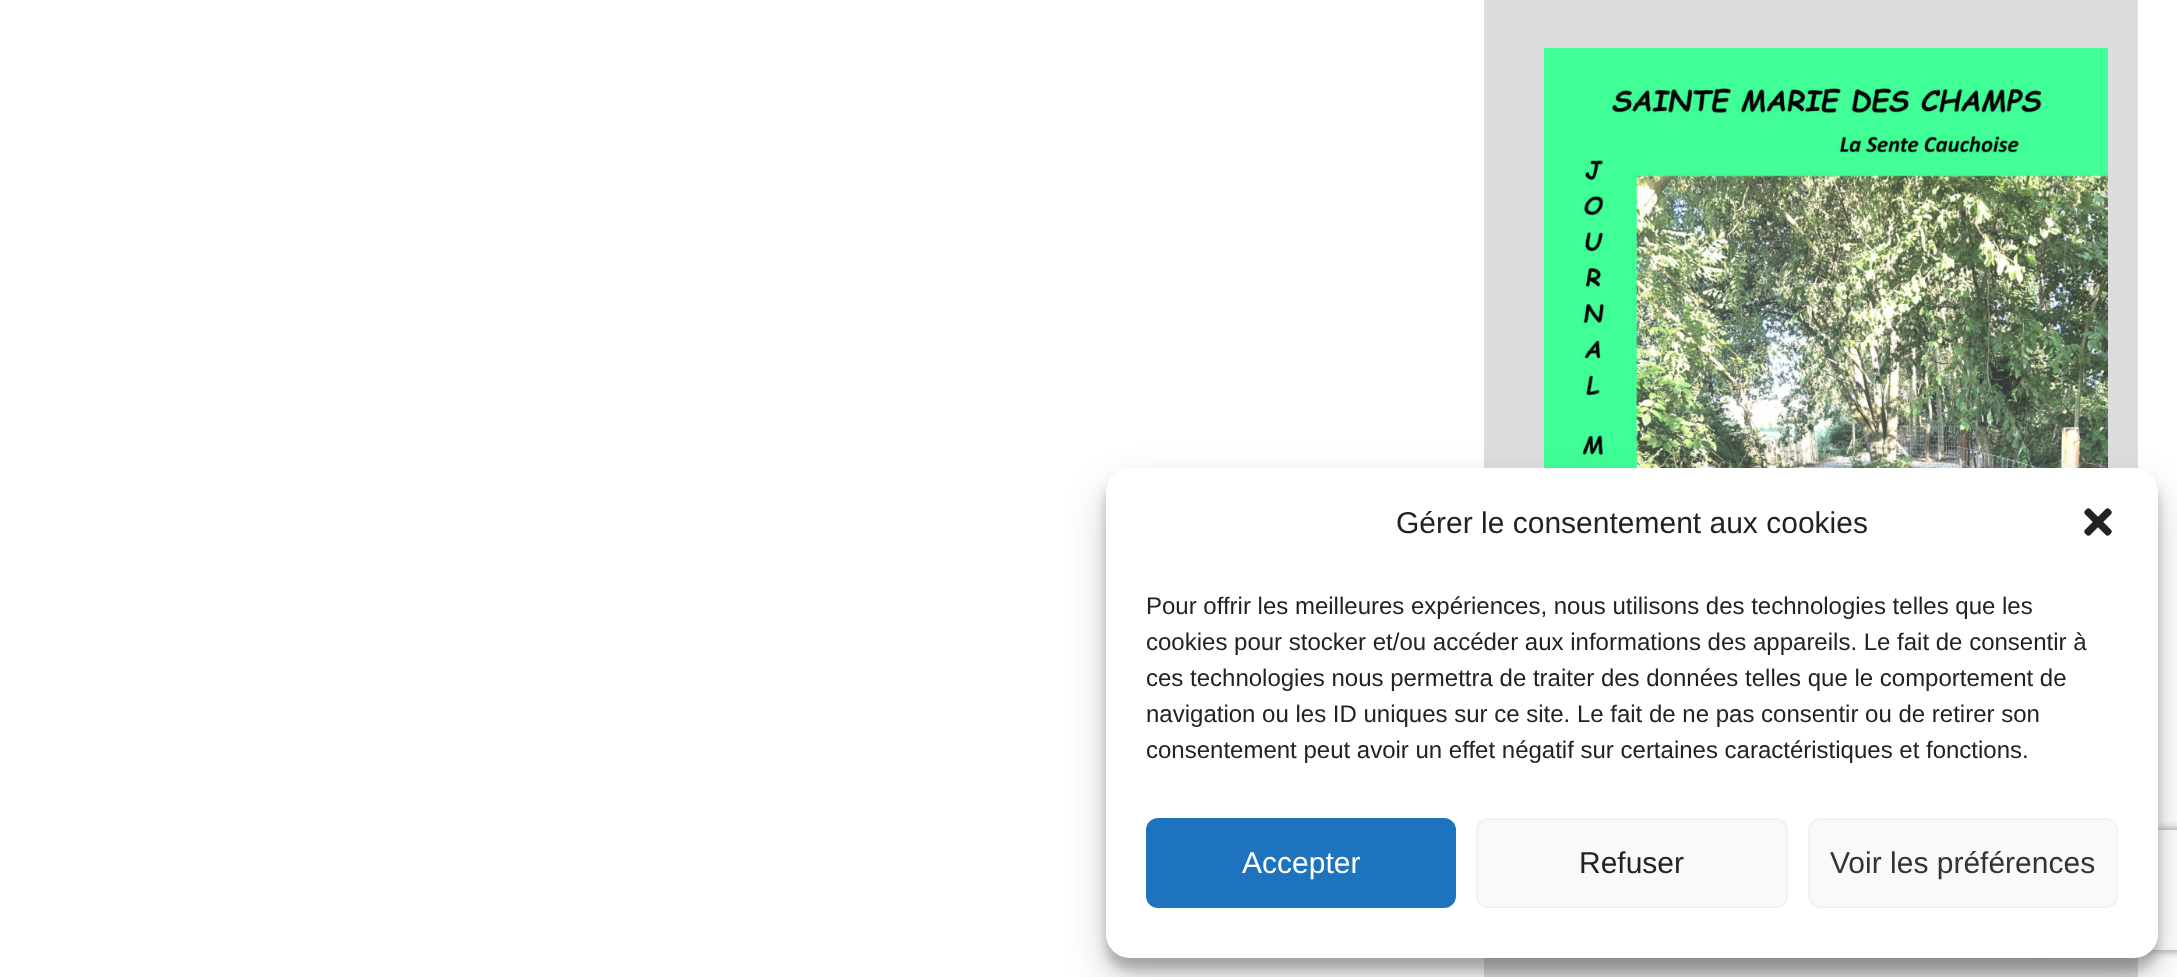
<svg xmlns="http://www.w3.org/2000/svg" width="2177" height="977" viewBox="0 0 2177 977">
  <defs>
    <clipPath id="clip1"><path d="M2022 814H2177V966H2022ZM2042 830H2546C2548 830 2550 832 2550 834V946C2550 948 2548 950 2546 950H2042C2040 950 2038 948 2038 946V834C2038 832 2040 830 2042 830Z" clip-rule="evenodd"/></clipPath>
  </defs>
  <rect width="100%" height="100%" fill="#fff"/>
  <path d="M1484 0h654v977H1484z" fill="#ddd"/>
  <image x="1544" y="48" width="564" height="420" href="img/1.png"/>
  <rect x="1106" y="480" width="1052" height="490" rx="24" fill="#0000003b" filter="blur(6px)"/>
  <rect x="1106" y="488" width="1052" height="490" rx="24" fill="#00000030" filter="blur(20px)"/>
  <g clip-path="url(#clip1)">
    <rect x="2038" y="830" width="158" height="120" rx="4" fill="#808080" filter="blur(5px)"/>
  </g>
  <rect x="1106" y="468" width="1052" height="490" rx="24" fill="#fff"/>
  <image x="2084" y="508" width="28" height="28" href="img/2.png"/>
  <rect x="1147" y="819" width="308" height="88" rx="11" fill="#1e73be" stroke="#1e73be" stroke-width="2"/>
  <rect x="1477" y="819" width="310" height="88" rx="11" fill="#f9f9f9" stroke="#f2f2f2" stroke-width="2"/>
  <rect x="1809" y="819" width="308" height="88" rx="11" fill="#f9f9f9" stroke="#f2f2f2" stroke-width="2"/>
  <text x="1396" y="533" font-family="Liberation Sans" font-size="30" fill="#222">Gérer le consentement aux cookies</text>
  <g font-family="Liberation Sans" font-size="24" fill="#222">
    <text x="1146" y="614">Pour offrir les meilleures expériences, nous utilisons des technologies telles que les</text>
    <text x="1146" y="650">cookies pour stocker et/ou accéder aux informations des appareils. Le fait de consentir à</text>
    <text x="1146" y="686">ces technologies nous permettra de traiter des données telles que le comportement de</text>
    <text x="1146" y="722">navigation ou les ID uniques sur ce site. Le fait de ne pas consentir ou de retirer son</text>
    <text x="1146" y="758">consentement peut avoir un effet négatif sur certaines caractéristiques et fonctions.</text>
  </g>
  <text x="1242" y="873" font-family="Liberation Sans" font-size="30" fill="#fff">Accepter</text>
  <text x="1579" y="873" font-family="Liberation Sans" font-size="30" fill="#222">Refuser</text>
  <text x="1830" y="873" font-family="Liberation Sans" font-size="30" fill="#333">Voir les préférences</text>
</svg>
